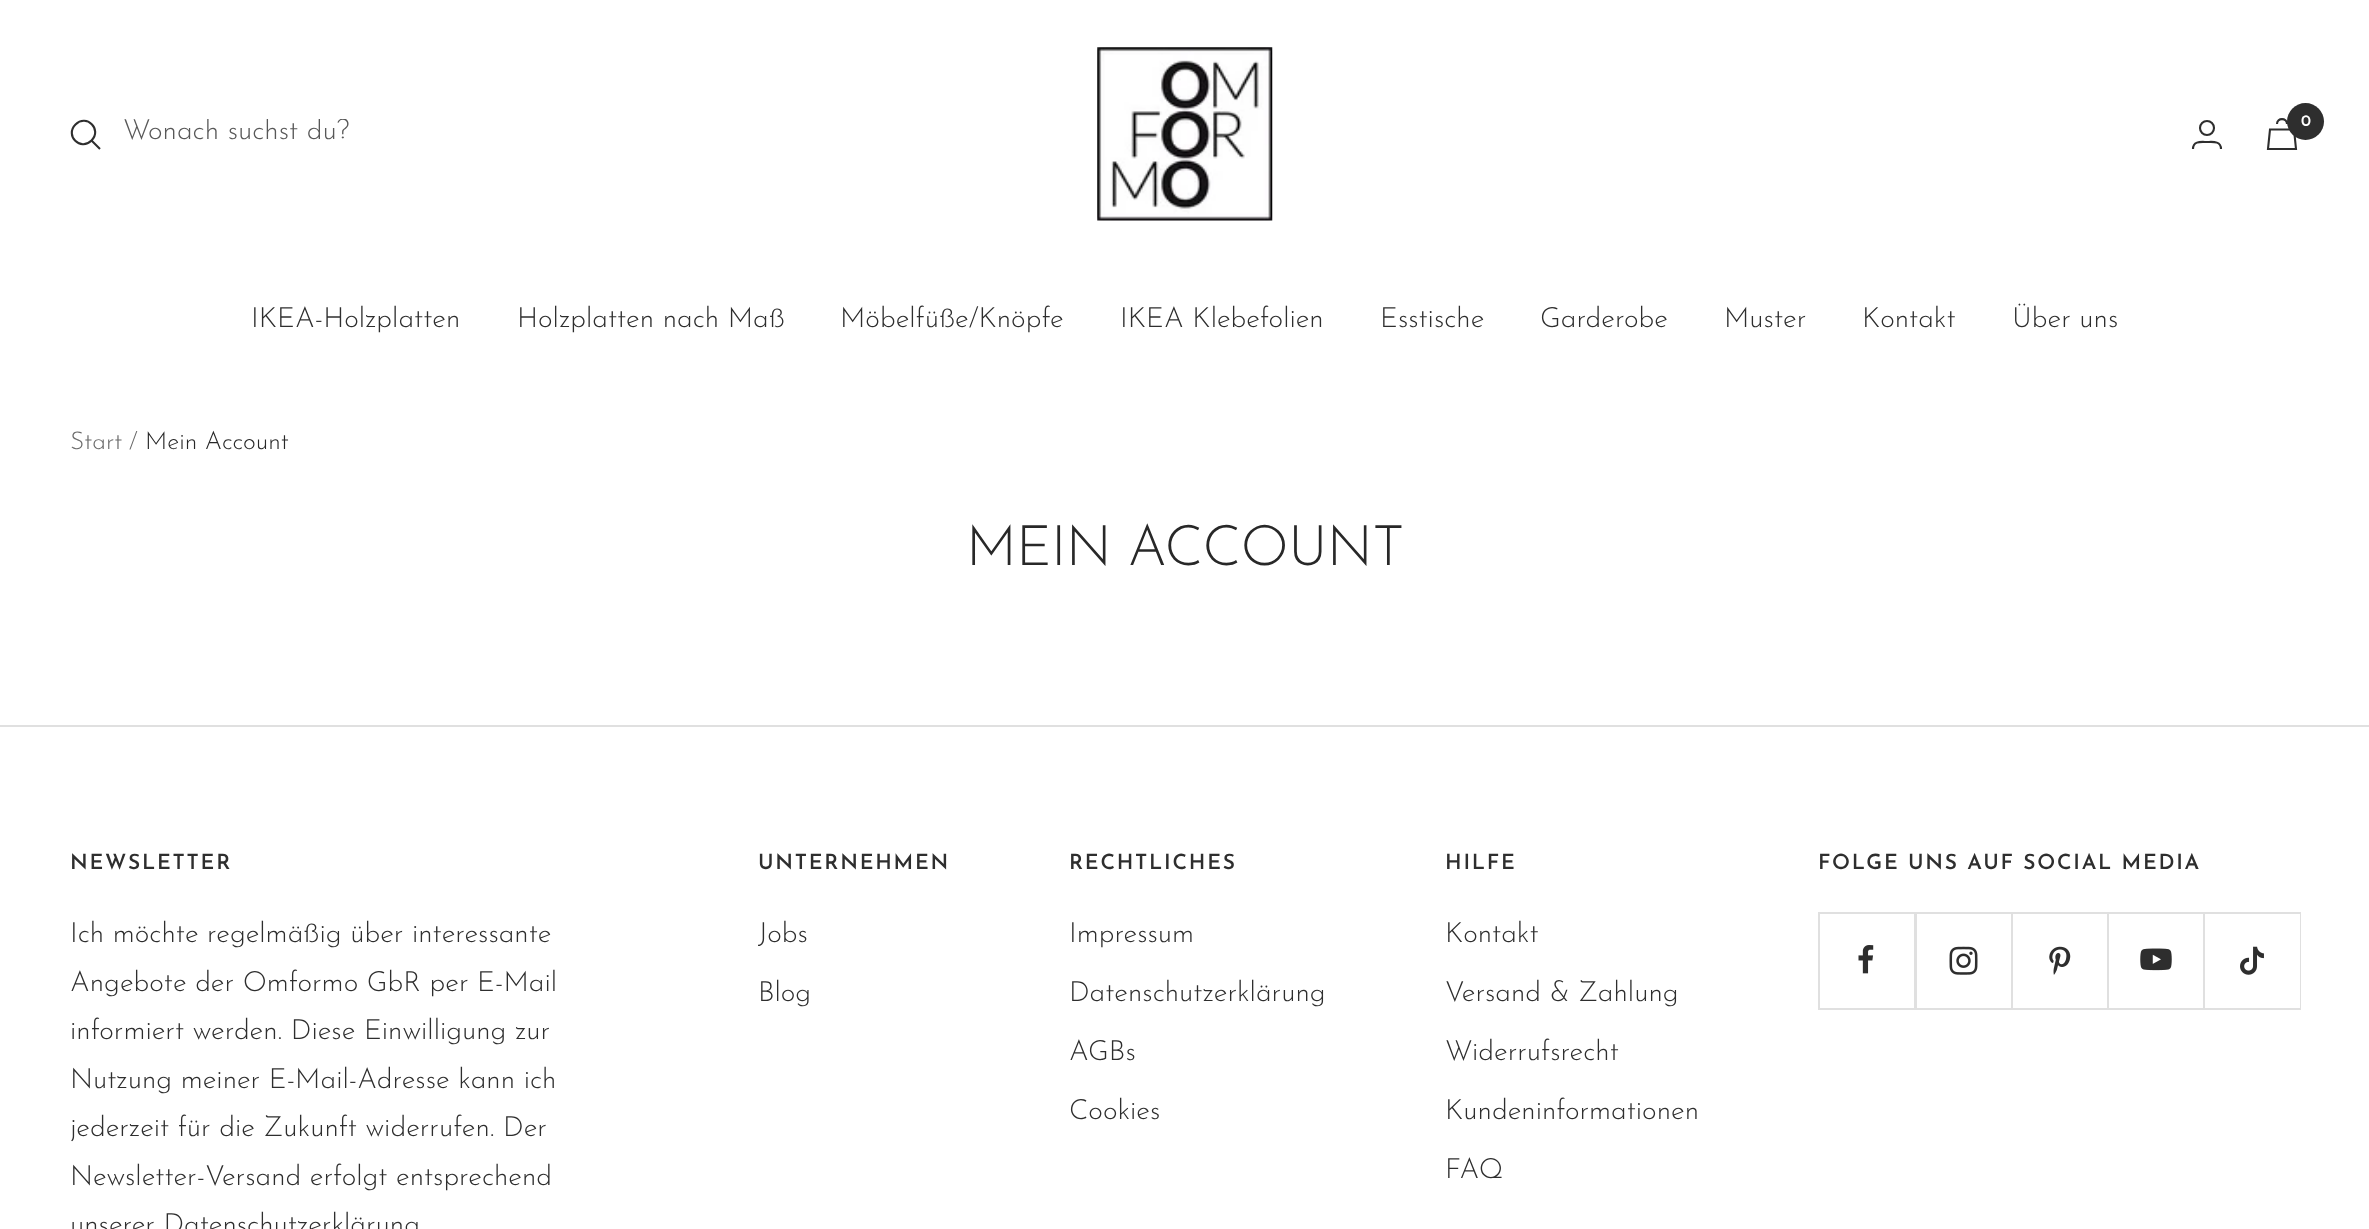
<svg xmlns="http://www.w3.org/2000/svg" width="2369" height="1229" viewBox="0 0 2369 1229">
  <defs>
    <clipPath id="clip1"><path d="M123 119h525v28H123z"/></clipPath>
  </defs>
  <rect width="100%" height="100%" fill="#fff"/>
  <path d="M91.5 140.5C102.5 129.5 86.5 113.5 75.5 124.5C64.5 135.5 80.5 151.5 91.5 140.5ZM91.5 140.5L100 149" fill="none" stroke="#2e2e2e" stroke-width="2.1"/>
  <image x="1097" y="47" width="176" height="174" href="img/1.png"/>
  <circle cx="2207" cy="128" r="7" fill="none" stroke="#2e2e2e" stroke-width="2.1"/>
  <path d="M2193 149C2193 140.5 2201.5 142 2207 142C2212 142 2221 140.5 2221 149" fill="none" stroke="#2e2e2e" stroke-width="2.1"/>
  <path d="M2270 129.5H2294L2296 149H2268ZM2287 124C2287 117.5 2277 117.5 2277 124" fill="none" stroke="#2e2e2e" stroke-width="2.1"/>
  <circle cx="2305.5" cy="121.5" r="18.5" fill="#2e2e2e"/>
  <path d="M0 725h2369v2H0z" fill="#e0e0e0"/>
  <path d="M1820 1008V1010H1916V914H1914V1008Z" fill="#e0e0e0"/>
  <path d="M1818 914V1010H1915V914H1914V1008H1818Z" fill="#e0e0e0"/>
  <path d="M1818 912h97v2H1818z" fill="#e0e0e0"/>
  <path d="M1818 912h2v96H1818z" fill="#e0e0e0"/>
  <image x="1858" y="945" width="16" height="29" href="img/2.png"/>
  <path d="M1916 1008V1010H2013V914H2011V1008Z" fill="#e0e0e0"/>
  <path d="M1915 912h98v2H1915z" fill="#e0e0e0"/>
  <path d="M1916 912h1v96H1916z" fill="#e0e0e0"/>
  <image x="1949" y="946" width="29" height="29" href="img/3.png"/>
  <path d="M2013 1008V1010H2109V914H2107V1008Z" fill="#e0e0e0"/>
  <path d="M2011 912h98v2H2011z" fill="#e0e0e0"/>
  <image x="2049" y="946" width="22" height="29" href="img/4.png"/>
  <path d="M2109 1008V1010H2205V914H2203V1008Z" fill="#e0e0e0"/>
  <path d="M2107 912h98v2H2107z" fill="#e0e0e0"/>
  <image x="2140" y="948" width="32" height="23" href="img/5.png"/>
  <path d="M2205 1008V1010H2301V914H2300V1008Z" fill="#e0e0e0"/>
  <path d="M2203 912h98v2H2203z" fill="#e0e0e0"/>
  <image x="2240" y="946" width="24" height="29" href="img/6.png"/>
  <g clip-path="url(#clip1)">
    <text x="123" y="139" font-family="Josefin Sans" font-size="28" font-weight="300" fill="#585858">Wonach suchst du?</text>
  </g>
  <text x="2301" y="126" font-family="Josefin Sans" font-size="16" font-weight="600" fill="#fff">0</text>
  <g font-family="Josefin Sans" font-size="28" font-weight="300" fill="#2e2e2e">
    <text x="251" y="327">IKEA-Holzplatten</text>
    <text x="517" y="327">Holzplatten nach Maß</text>
    <text x="840" y="327">Möbelfüße/Knöpfe</text>
    <text x="1120" y="327">IKEA Klebefolien</text>
    <text x="1380" y="327">Esstische</text>
    <text x="1540" y="327">Garderobe</text>
    <text x="1724" y="327">Muster</text>
    <text x="1862" y="327">Kontakt</text>
    <text x="2012" y="327">Über uns</text>
  </g>
  <g font-family="Josefin Sans" font-size="24.5" font-weight="300" fill="#696969">
    <text x="70" y="449">Start</text>
    <text x="129" y="449">/</text>
  </g>
  <text x="145" y="449" font-family="Josefin Sans" font-size="24.5" font-weight="300" fill="#282828">Mein Account</text>
  <text x="966" y="565" font-family="Josefin Sans" font-size="56" font-weight="300" letter-spacing="-0.75" fill="#282828">MEIN ACCOUNT</text>
  <text x="70" y="869" font-family="Josefin Sans" font-size="21" font-weight="600" letter-spacing="1.75" fill="#2e2e2e">NEWSLETTER</text>
  <g font-family="Josefin Sans" font-size="28" font-weight="300" fill="#2e2e2e">
    <text x="70" y="942">Ich möchte regelmäßig über interessante</text>
    <text x="70" y="991">Angebote der Omformo GbR per E-Mail</text>
    <text x="70" y="1039">informiert werden. Diese Einwilligung zur</text>
    <text x="70" y="1088">Nutzung meiner E-Mail-Adresse kann ich</text>
    <text x="70" y="1136">jederzeit für die Zukunft widerrufen. Der</text>
    <text x="70" y="1185">Newsletter-Versand erfolgt entsprechend</text>
    <text x="70" y="1233">unserer Datenschutzerklärung</text>
  </g>
  <text x="758" y="869" font-family="Josefin Sans" font-size="21" font-weight="600" letter-spacing="1.75" fill="#2e2e2e">UNTERNEHMEN</text>
  <g font-family="Josefin Sans" font-size="28" font-weight="300" fill="#2e2e2e">
    <text x="758" y="942">Jobs</text>
    <text x="758" y="1001">Blog</text>
  </g>
  <text x="1069" y="869" font-family="Josefin Sans" font-size="21" font-weight="600" letter-spacing="1.75" fill="#2e2e2e">RECHTLICHES</text>
  <g font-family="Josefin Sans" font-size="28" font-weight="300" fill="#2e2e2e">
    <text x="1069" y="942">Impressum</text>
    <text x="1069" y="1001">Datenschutzerklärung</text>
    <text x="1069" y="1060">AGBs</text>
    <text x="1069" y="1119">Cookies</text>
  </g>
  <text x="1445" y="869" font-family="Josefin Sans" font-size="21" font-weight="600" letter-spacing="1.75" fill="#2e2e2e">HILFE</text>
  <g font-family="Josefin Sans" font-size="28" font-weight="300" fill="#2e2e2e">
    <text x="1445" y="942">Kontakt</text>
    <text x="1445" y="1001">Versand &amp; Zahlung</text>
    <text x="1445" y="1060">Widerrufsrecht</text>
    <text x="1445" y="1119">Kundeninformationen</text>
    <text x="1445" y="1178">FAQ</text>
  </g>
  <text x="1818" y="869" font-family="Josefin Sans" font-size="21" font-weight="600" letter-spacing="1.75" fill="#2e2e2e">FOLGE UNS AUF SOCIAL MEDIA</text>
</svg>
